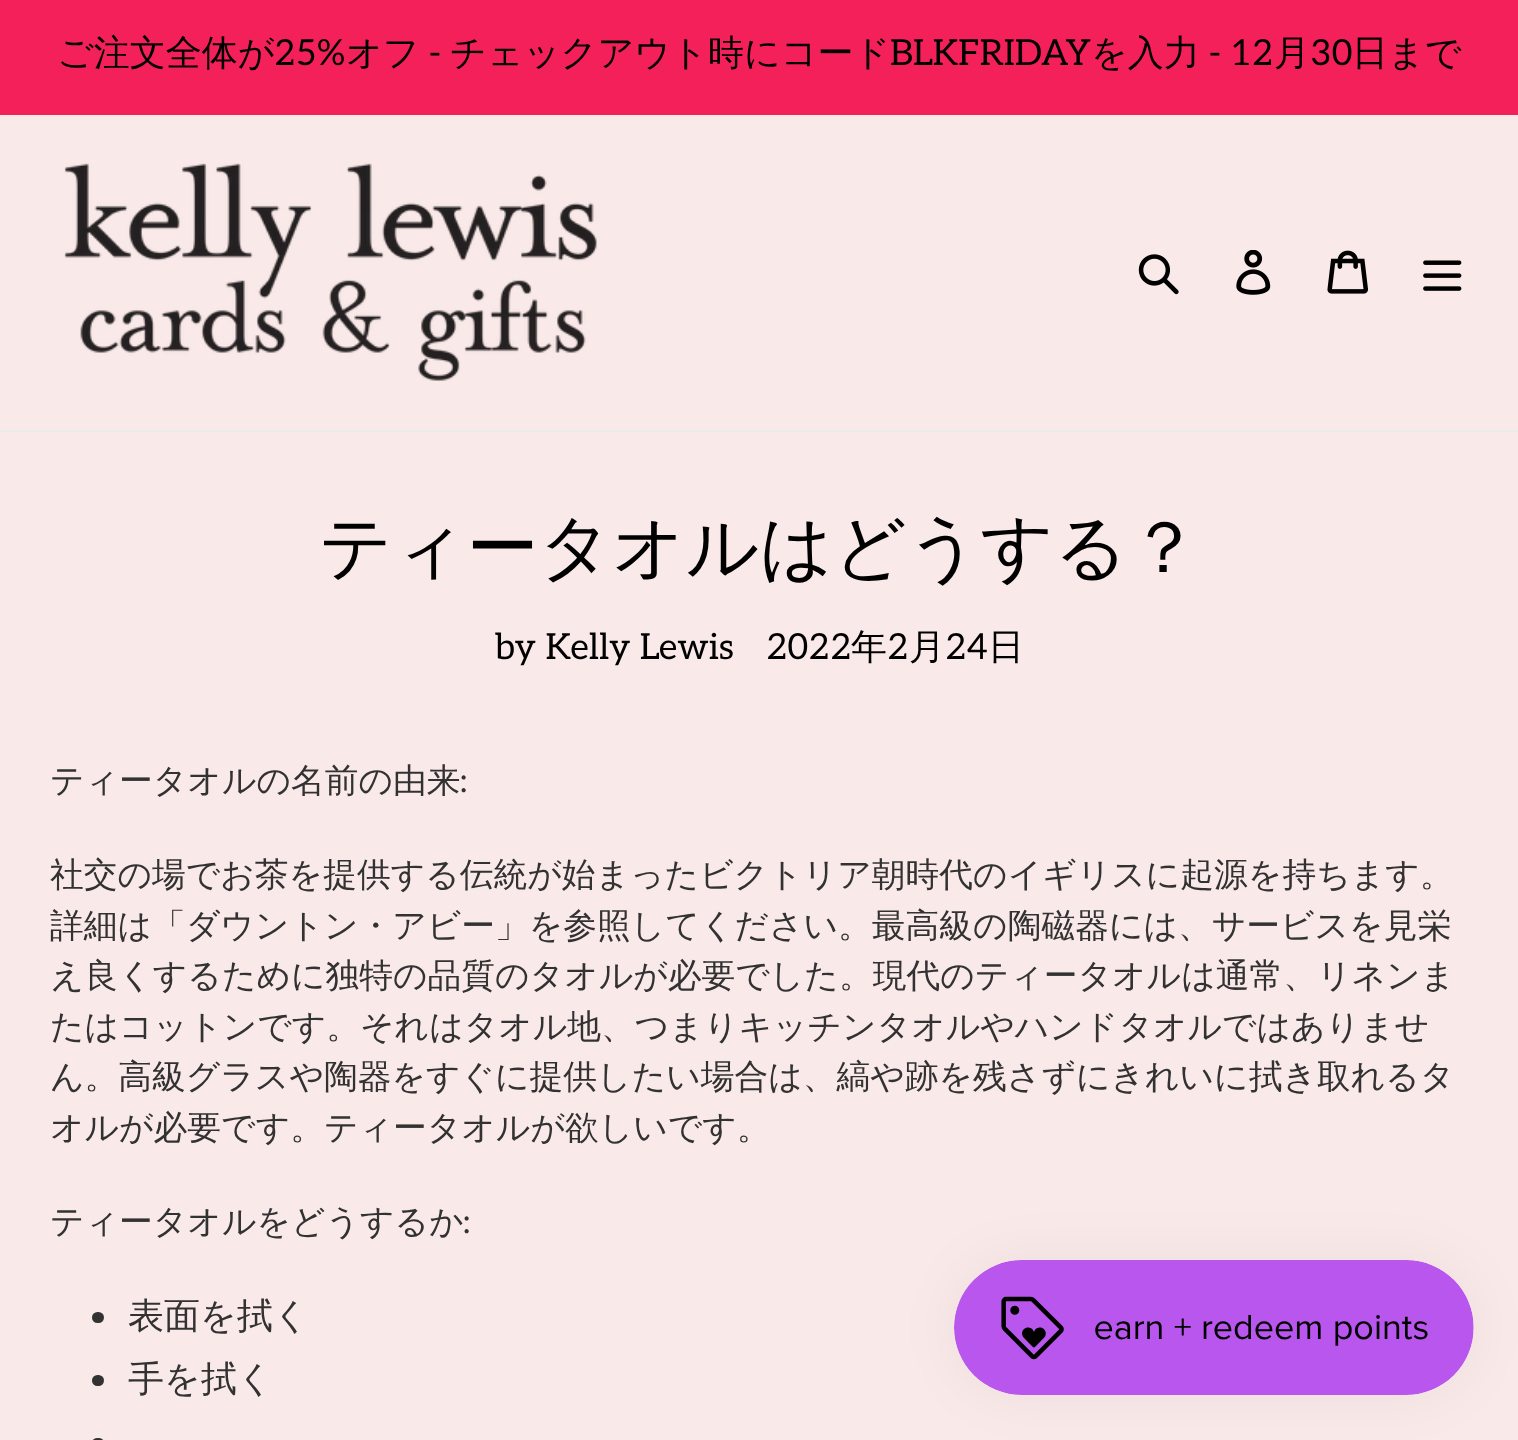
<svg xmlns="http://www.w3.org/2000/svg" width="1518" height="1440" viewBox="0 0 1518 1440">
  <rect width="100%" height="100%" fill="#fae9e9"/>
  <path d="M0 0h1518v115H0z" fill="#f32059"/>
  <path d="M0 430h1518v2H0z" fill="#ebebeb"/>
  <image x="64" y="163" width="533" height="218" href="img/1.png"/>
  <image x="1138" y="254" width="41" height="41" href="img/2.png"/>
  <image x="1236" y="250" width="35" height="45" href="img/3.png"/>
  <image x="1327" y="250" width="41" height="44" href="img/4.png"/>
  <image x="1423" y="260" width="39" height="31" href="img/5.png"/>
  <rect x="92" y="1312" width="12" height="11" rx="5.5" fill="#333232"/>
  <rect x="92" y="1375" width="12" height="11" rx="5.5" fill="#333232"/>
  <rect x="92" y="1438" width="12" height="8" rx="5.5" fill="#333232"/>
  <rect x="954" y="1260" width="520" height="135" rx="67.5" fill="#0000000d" filter="blur(28px)"/>
  <image x="954" y="1260" width="520" height="135" href="img/6.png"/>
  <text x="57" y="65" font-family="WenQuanYi Zen Hei" font-size="36" font-weight="500" fill="#000">ご注文全体が</text>
  <text x="274" y="65" font-family="Aleo" font-size="36" fill="#000">25%</text>
  <text x="346" y="65" font-family="WenQuanYi Zen Hei" font-size="36" font-weight="500" fill="#000">オフ</text>
  <text x="429" y="65" font-family="Aleo" font-size="36" fill="#000">-</text>
  <text x="450" y="65" font-family="WenQuanYi Zen Hei" font-size="36" font-weight="500" fill="#000">チェックアウト時にコード</text>
  <text x="890" y="65" font-family="Aleo" font-size="36" fill="#000">BLKFRIDAY</text>
  <text x="1091" y="65" font-family="WenQuanYi Zen Hei" font-size="36" font-weight="500" fill="#000">を入力</text>
  <text x="1209" y="65" font-family="Aleo" font-size="36" fill="#000">- 12</text>
  <text x="1274" y="65" font-family="WenQuanYi Zen Hei" font-size="36" font-weight="500" fill="#000">月</text>
  <text x="1310" y="65" font-family="Aleo" font-size="36" fill="#000">30</text>
  <text x="1352" y="65" font-family="WenQuanYi Zen Hei" font-size="36" font-weight="500" fill="#000">日まで</text>
  <text x="319" y="572" font-family="WenQuanYi Zen Hei" font-size="72" font-weight="500" fill="#000">ティータオルはどうする？</text>
  <g font-family="Aleo" font-size="36" fill="#000">
    <text x="495" y="659">by Kelly Lewis</text>
    <text x="766" y="659">2022</text>
  </g>
  <text x="851" y="659" font-family="WenQuanYi Zen Hei" font-size="36" font-weight="500" fill="#000">年</text>
  <text x="887" y="659" font-family="Aleo" font-size="36" fill="#000">2</text>
  <text x="909" y="659" font-family="WenQuanYi Zen Hei" font-size="36" font-weight="500" fill="#000">月</text>
  <text x="945" y="659" font-family="Aleo" font-size="36" fill="#000">24</text>
  <text x="988" y="659" font-family="WenQuanYi Zen Hei" font-size="36" font-weight="500" fill="#000">日</text>
  <text x="50" y="792" font-family="WenQuanYi Zen Hei" font-size="33.75" font-weight="500" fill="#333232">ティータオルの名前の由来</text>
  <text x="460" y="792" font-family="Aleo" font-size="33.75" fill="#333232">:</text>
  <g font-family="WenQuanYi Zen Hei" font-size="33.75" font-weight="500" fill="#333232">
    <text x="50" y="886">社交の場でお茶を提供する伝統が始まったビクトリア朝時代のイギリスに起源を持ちます。</text>
    <text x="50" y="937">詳細は「ダウントン・アビー」を参照してください。最高級の陶磁器には、サービスを見栄</text>
    <text x="50" y="987">え良くするために独特の品質のタオルが必要でした。現代のティータオルは通常、リネンま</text>
    <text x="50" y="1038">たはコットンです。それはタオル地、つまりキッチンタオルやハンドタオルではありませ</text>
    <text x="50" y="1088">ん。高級グラスや陶器をすぐに提供したい場合は、縞や跡を残さずにきれいに拭き取れるタ</text>
    <text x="50" y="1139">オルが必要です。ティータオルが欲しいです。</text>
    <text x="50" y="1233">ティータオルをどうするか</text>
  </g>
  <text x="463" y="1233" font-family="Aleo" font-size="33.75" fill="#333232">:</text>
  <g font-family="WenQuanYi Zen Hei" font-size="36" font-weight="500" fill="#333232">
    <text x="128" y="1328">表面を拭く</text>
    <text x="128" y="1391">手を拭く</text>
  </g>
</svg>
